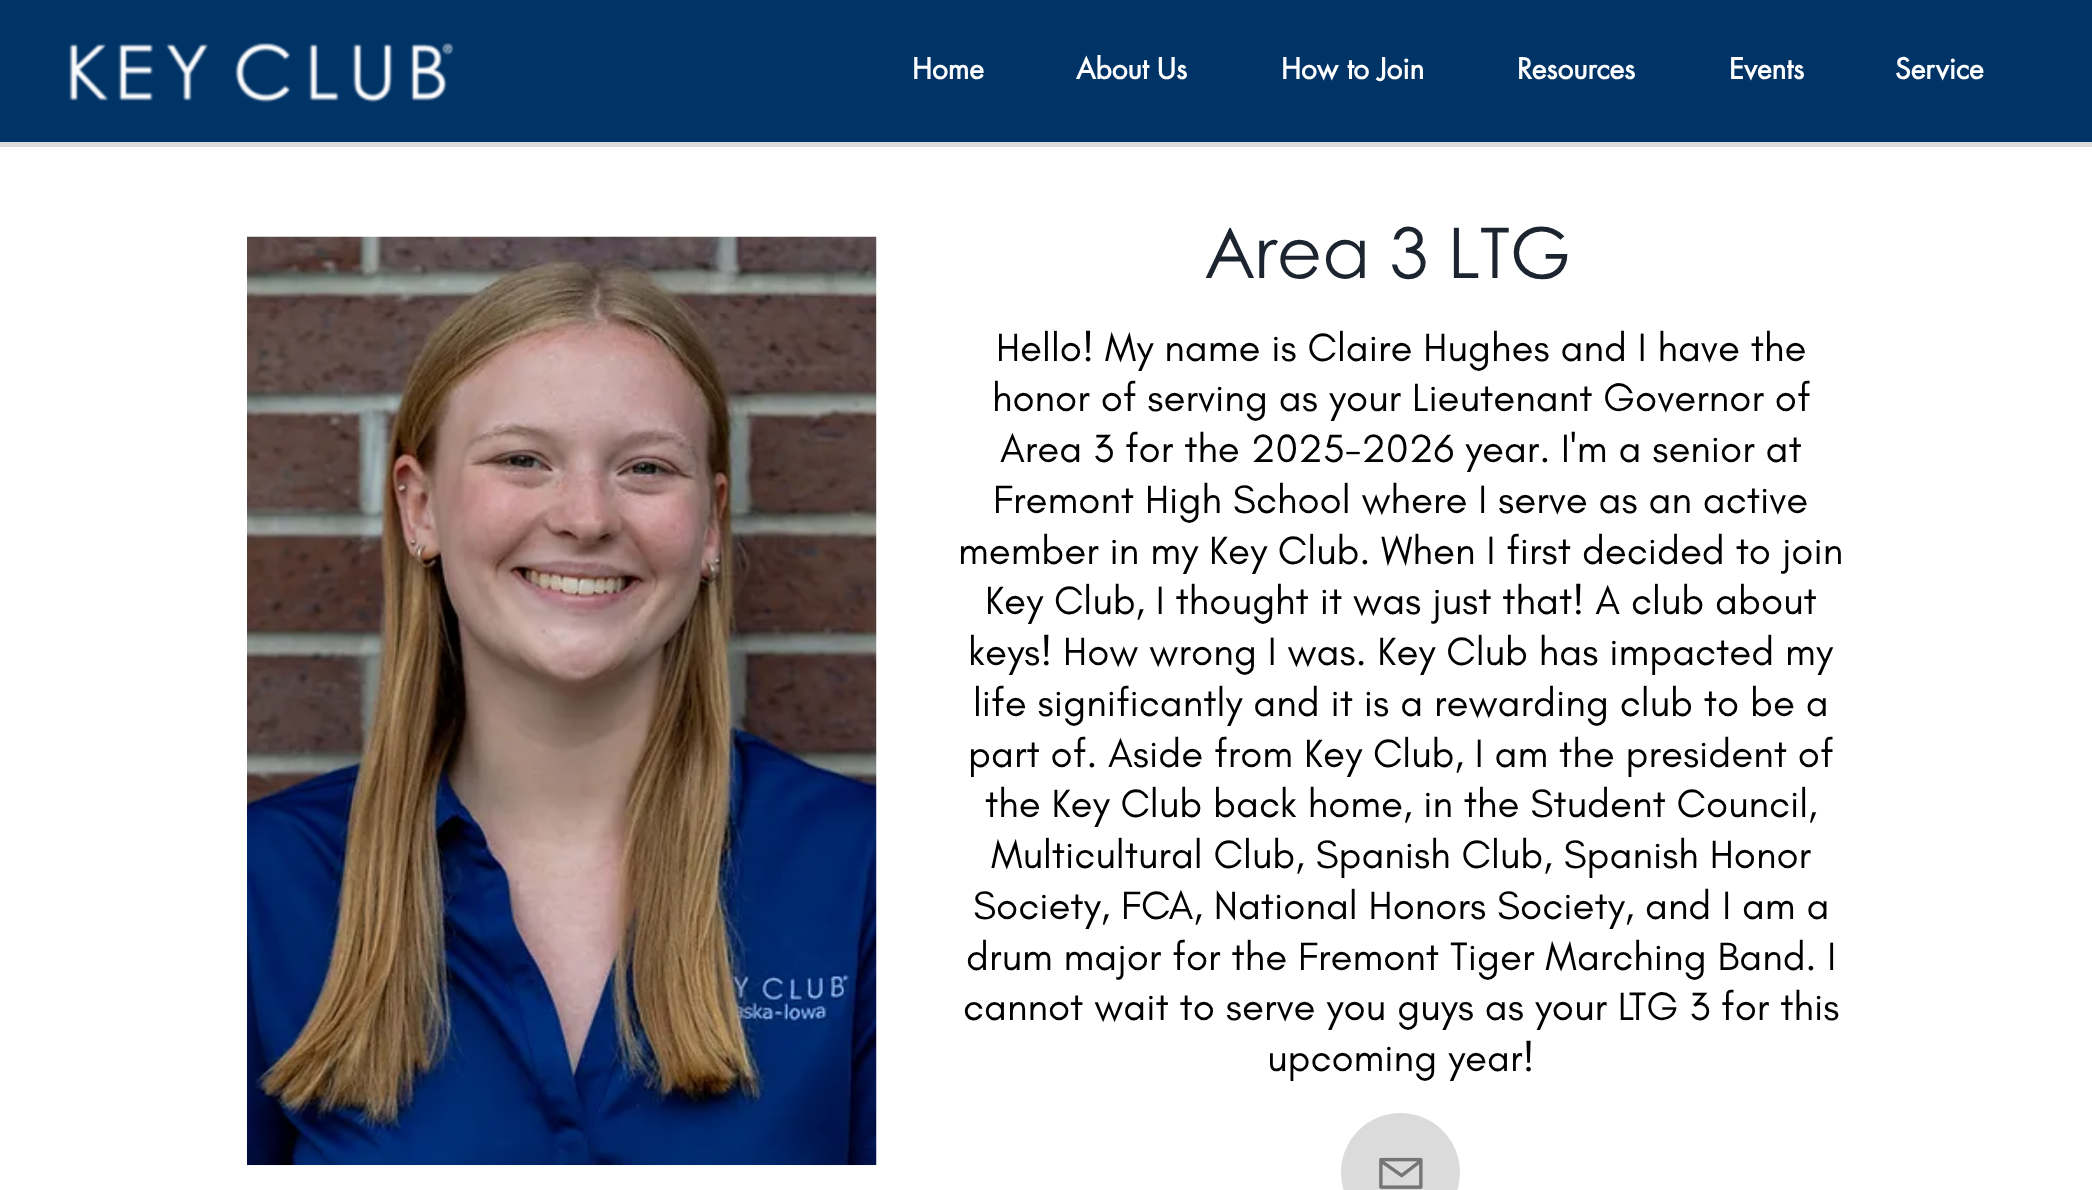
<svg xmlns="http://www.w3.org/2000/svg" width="2092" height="1190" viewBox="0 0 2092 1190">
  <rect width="100%" height="100%" fill="#fff"/>
  <path d="M0 142h2092v5H0z" fill="#dbdbdb"/>
  <path d="M0 0h2092v142H0z" fill="#036"/>
  <image x="69" y="43" width="385" height="60" href="img/1.png"/>
  <image x="247" y="236" width="630" height="930" href="img/2.png"/>
  <circle cx="1400.5" cy="1172.5" r="59.5" fill="#dbdbdb"/>
  <image x="1379" y="1157" width="44" height="32" href="img/3.png"/>
  <g font-family="futura" font-size="28" font-weight="bold" fill="#fff">
    <text x="912" y="79">Home</text>
    <text x="1076" y="79">About Us</text>
    <text x="1281" y="79">How to Join</text>
    <text x="1517" y="79">Resources</text>
    <text x="1729" y="79">Events</text>
    <text x="1895" y="79">Service</text>
  </g>
  <text x="1204" y="278" font-family="Century Gothic" font-size="70" fill="#1c242f">Area 3 LTG</text>
  <g font-family="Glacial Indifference" font-size="40.25" fill="#000">
    <text x="996" y="361">Hello! My name is Claire Hughes and I have the</text>
    <text x="992" y="411">honor of serving as your Lieutenant Governor of</text>
    <text x="1000" y="462">Area 3 for the 2025-2026 year. I'm a senior at</text>
    <text x="993" y="513">Fremont High School where I serve as an active</text>
    <text x="958" y="564">member in my Key Club. When I first decided to join</text>
    <text x="985" y="614">Key Club, I thought it was just that! A club about</text>
    <text x="968" y="665">keys! How wrong I was. Key Club has impacted my</text>
    <text x="973" y="716">life significantly and it is a rewarding club to be a</text>
    <text x="968" y="767">part of. Aside from Key Club, I am the president of</text>
    <text x="985" y="817">the Key Club back home, in the Student Council,</text>
    <text x="991" y="868">Multicultural Club, Spanish Club, Spanish Honor</text>
    <text x="973" y="919">Society, FCA, National Honors Society, and I am a</text>
    <text x="966" y="970">drum major for the Fremont Tiger Marching Band. I</text>
    <text x="963" y="1020">cannot wait to serve you guys as your LTG 3 for this</text>
    <text x="1267" y="1071">upcoming year!</text>
  </g>
</svg>
